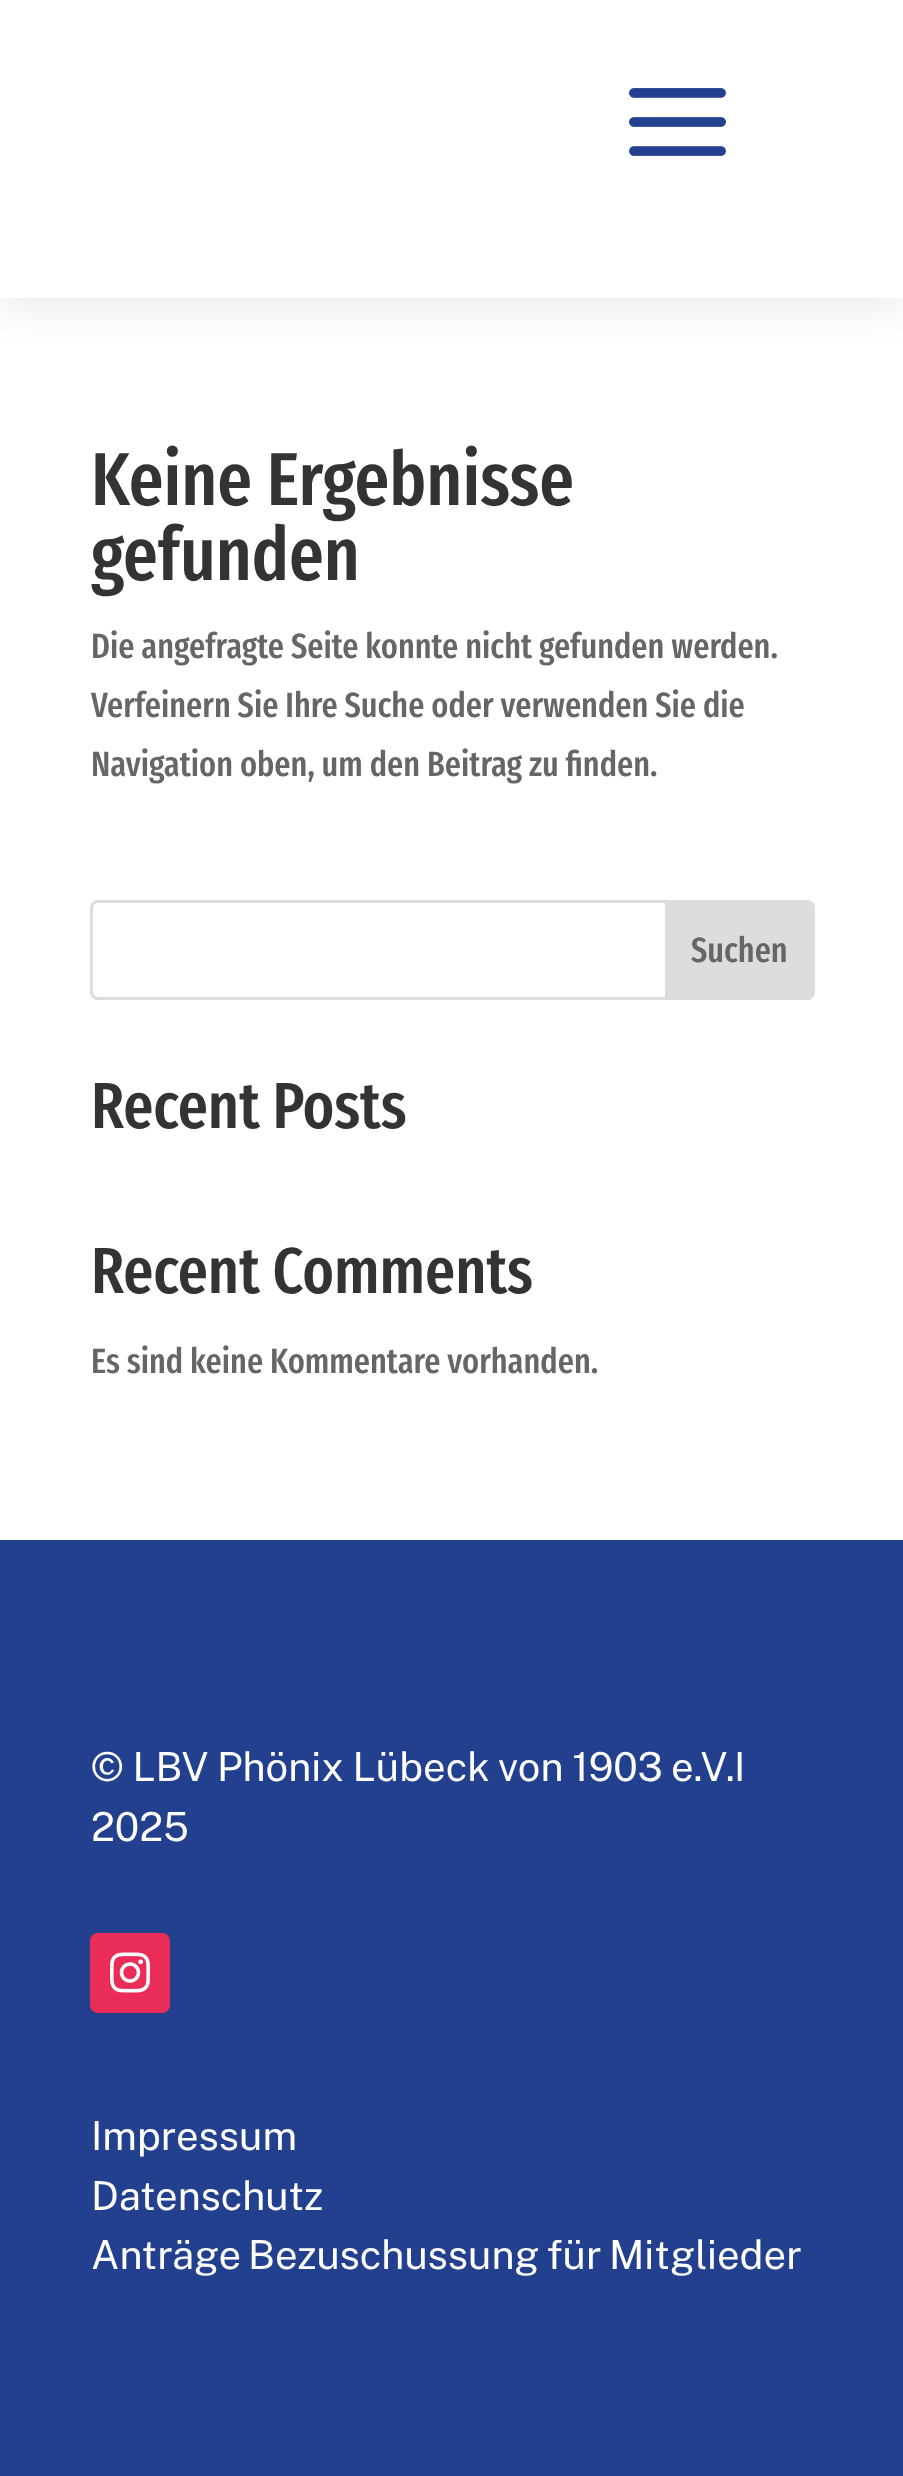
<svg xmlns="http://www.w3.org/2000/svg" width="903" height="2476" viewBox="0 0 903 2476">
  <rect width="100%" height="100%" fill="#fff"/>
  <path d="M0 5h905v298H0z" fill="#0000001a" filter="blur(22.5px)"/>
  <path d="M0 0h903v298H0z" fill="#fff"/>
  <image x="629" y="88" width="97" height="68" href="img/1.png"/>
  <rect x="91.5" y="901.5" width="722" height="97" rx="6.5" fill="none" stroke="#ddd" stroke-width="3"/>
  <path d="M666.5 901.5H807C810.5 901.5 813.5 904.5 813.5 908V992C813.5 995.5 810.5 998.5 807 998.5H666.5Z" fill="#ddd" stroke="#ddd" stroke-width="3"/>
  <path d="M0 1540h903v936H0z" fill="#23408f"/>
  <rect x="90" y="1933" width="80" height="80" rx="8" fill="#ea2c59"/>
  <image x="110" y="1952" width="40" height="41" href="img/2.png"/>
  <g font-family="Fira Sans Extra Condensed" font-size="75" font-weight="500" fill="#333">
    <text x="91" y="505">Keine Ergebnisse</text>
    <text x="91" y="580">gefunden</text>
  </g>
  <g font-family="Fira Sans Extra Condensed" font-size="35" font-weight="500" fill="#666">
    <text x="91" y="658">Die angefragte Seite konnte nicht gefunden werden.</text>
    <text x="91" y="717">Verfeinern Sie Ihre Suche oder verwenden Sie die</text>
    <text x="91" y="776">Navigation oben, um den Beitrag zu finden.</text>
    <text x="691" y="962">Suchen</text>
  </g>
  <g font-family="Fira Sans Extra Condensed" font-size="65" font-weight="500" fill="#333">
    <text x="91" y="1128">Recent Posts</text>
    <text x="91" y="1293">Recent Comments</text>
  </g>
  <text x="91" y="1373" font-family="Fira Sans Extra Condensed" font-size="35" font-weight="500" fill="#666">Es sind keine Kommentare vorhanden.</text>
  <g font-family="Public Sans" font-size="40" fill="#fff">
    <text x="91" y="1781" word-spacing="-1">© LBV Phönix Lübeck von 1903 e.V.</text>
    <text x="734" y="1781">I</text>
    <text x="91" y="1841">2025</text>
    <text x="91" y="2150">Impressum</text>
    <text x="91" y="2210">Datenschutz</text>
    <text x="91" y="2269" word-spacing="-2.5">Anträge Bezuschussung für Mitglieder</text>
  </g>
</svg>
